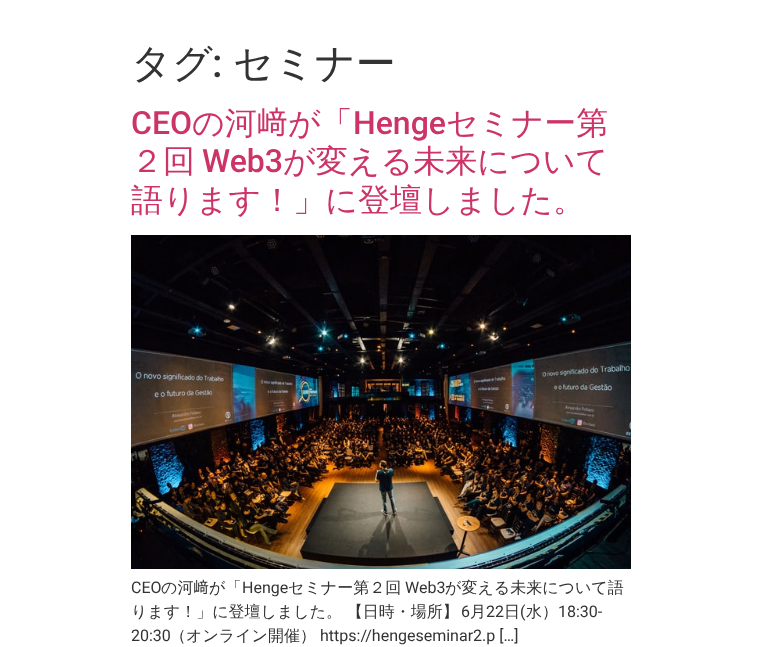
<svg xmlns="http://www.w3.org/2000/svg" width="761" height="647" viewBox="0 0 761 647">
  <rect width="100%" height="100%" fill="#fff"/>
  <image x="131" y="235" width="500" height="334" href="img/1.png"/>
  <text x="131" y="77" font-family="WenQuanYi Zen Hei" font-size="40" font-weight="500" fill="#333">タグ</text>
  <text x="212" y="77" font-family="Roboto" font-size="40" font-weight="500" fill="#333">:</text>
  <text x="233" y="77" font-family="WenQuanYi Zen Hei" font-size="40" font-weight="500" fill="#333">セミナー</text>
  <text x="131" y="134" font-family="Roboto" font-size="32" font-weight="500" fill="#c36">CEO</text>
  <text x="192" y="134" font-family="WenQuanYi Zen Hei" font-size="32" font-weight="500" fill="#c36">の河</text>
  <text x="256" y="134" font-family="IPAPGothic" font-size="32" fill="#c36">﨑</text>
  <text x="288" y="134" font-family="WenQuanYi Zen Hei" font-size="32" font-weight="500" fill="#c36">が「</text>
  <text x="353" y="134" font-family="Roboto" font-size="32" font-weight="500" fill="#c36">Henge</text>
  <g font-family="WenQuanYi Zen Hei" font-size="32" font-weight="500" fill="#c36">
    <text x="446" y="134">セミナー第</text>
    <text x="131" y="172">２回</text>
  </g>
  <text x="202" y="172" font-family="Roboto" font-size="32" font-weight="500" fill="#c36">Web3</text>
  <g font-family="WenQuanYi Zen Hei" font-size="32" font-weight="500" fill="#c36">
    <text x="283" y="172">が変える未来について</text>
    <text x="131" y="211">語ります！」に登壇しました。</text>
  </g>
  <text x="131" y="593" font-family="Roboto" font-size="16" fill="#333">CEO</text>
  <text x="161" y="593" font-family="WenQuanYi Zen Hei" font-size="16" font-weight="500" fill="#333">の河</text>
  <text x="193" y="593" font-family="IPAPGothic" font-size="16" fill="#333">﨑</text>
  <text x="209" y="593" font-family="WenQuanYi Zen Hei" font-size="16" font-weight="500" fill="#333">が「</text>
  <text x="242" y="593" font-family="Roboto" font-size="16" fill="#333">Henge</text>
  <text x="288" y="593" font-family="WenQuanYi Zen Hei" font-size="16" font-weight="500" fill="#333">セミナー第２回</text>
  <text x="405" y="593" font-family="Roboto" font-size="16" fill="#333">Web3</text>
  <g font-family="WenQuanYi Zen Hei" font-size="16" font-weight="500" fill="#333">
    <text x="445" y="593">が変える未来について語</text>
    <text x="131" y="617">ります！」に登壇しました。 【日時・場所】</text>
  </g>
  <text x="461" y="617" font-family="Roboto" font-size="16" fill="#333">6</text>
  <text x="470" y="617" font-family="WenQuanYi Zen Hei" font-size="16" font-weight="500" fill="#333">月</text>
  <text x="486" y="617" font-family="Roboto" font-size="16" fill="#333">22</text>
  <text x="504" y="617" font-family="WenQuanYi Zen Hei" font-size="16" font-weight="500" fill="#333">日</text>
  <text x="520" y="617" font-family="Roboto" font-size="16" fill="#333">(</text>
  <text x="526" y="617" font-family="WenQuanYi Zen Hei" font-size="16" font-weight="500" fill="#333">水）</text>
  <g font-family="Roboto" font-size="16" fill="#333">
    <text x="558" y="617">18:30-</text>
    <text x="131" y="641">20:30</text>
  </g>
  <text x="170" y="641" font-family="WenQuanYi Zen Hei" font-size="16" font-weight="500" fill="#333">（オンライン開催）</text>
  <text x="320" y="641" font-family="Roboto" font-size="16" fill="#333">https://hengeseminar2.p […]</text>
</svg>
